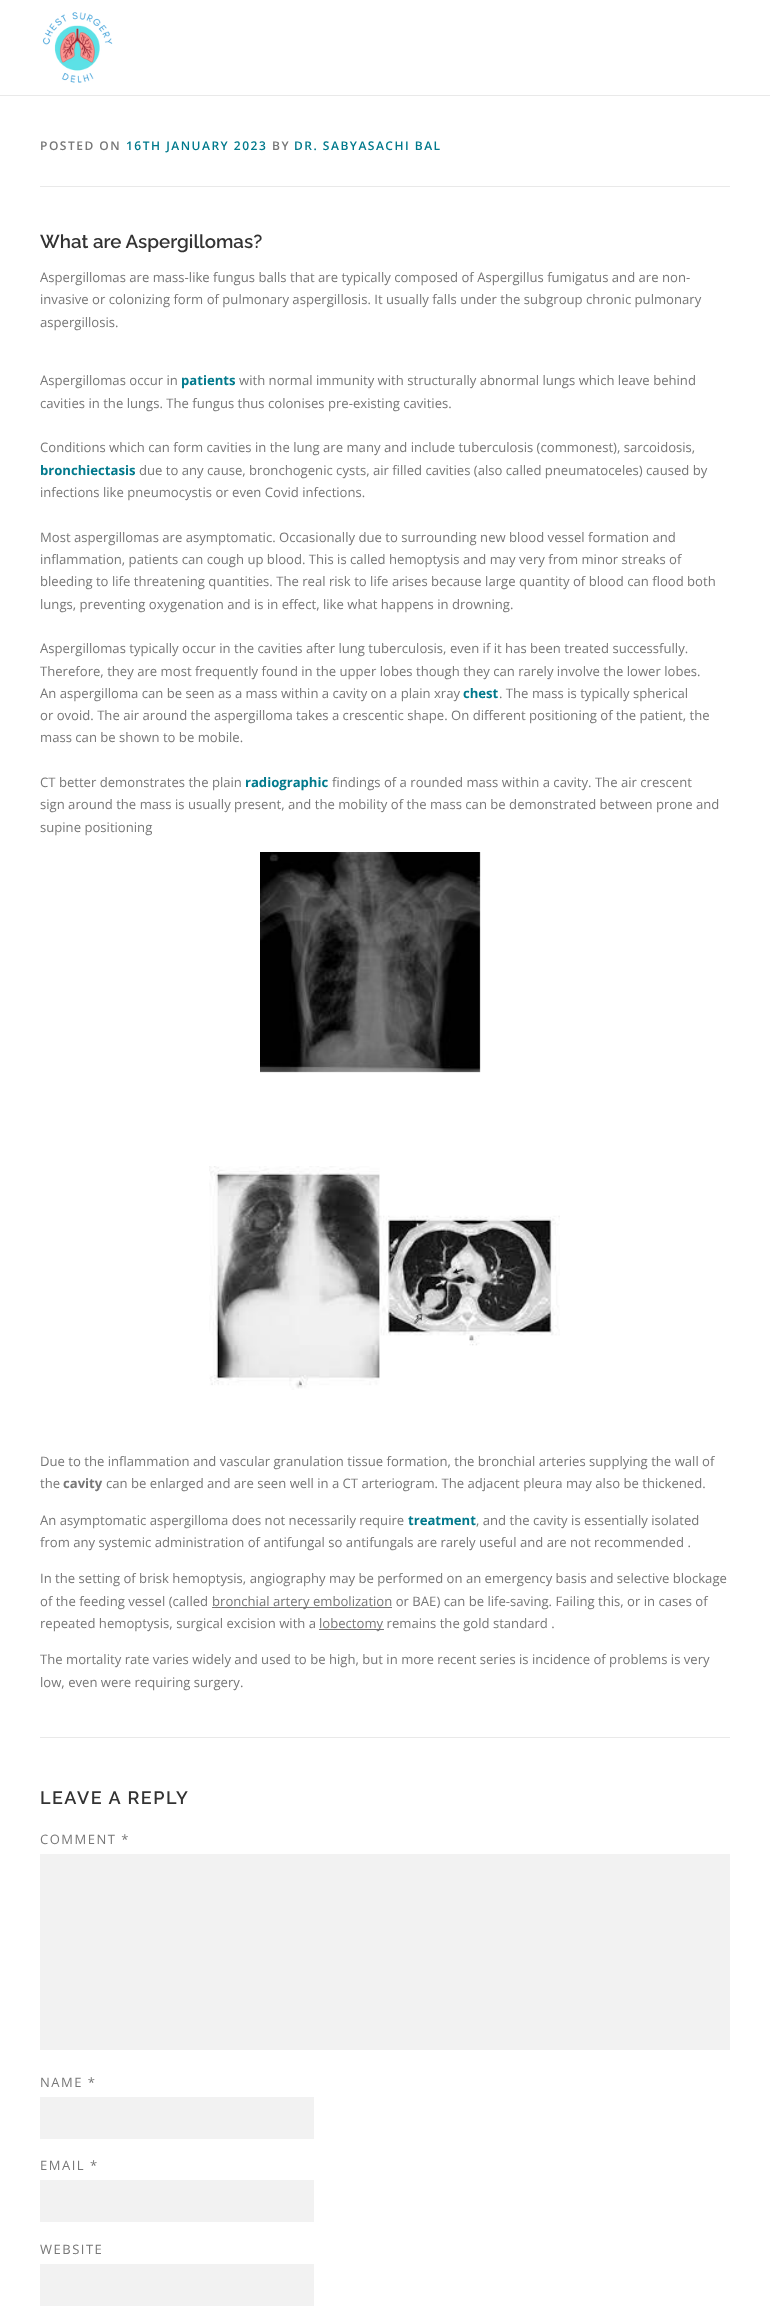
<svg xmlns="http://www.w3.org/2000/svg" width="770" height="2320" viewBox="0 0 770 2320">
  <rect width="100%" height="100%" fill="#fff"/>
  <image x="42" y="12" width="71" height="71" href="img/1.png"/>
  <path d="M0 95h770v1H0z" fill="#e9e9e9"/>
  <path d="M40 186h690v1H40z" fill="#e9e9e9"/>
  <image x="260" y="852" width="221" height="221" href="img/2.png"/>
  <image x="209" y="1166" width="351" height="224" href="img/3.png"/>
  <path d="M212 1607h180v1H212z" fill="#777"/>
  <path d="M319 1629h65v1H319z" fill="#777"/>
  <path d="M40 1737h690v1H40z" fill="#e9e9e9"/>
  <path d="M40 1854h690v196H40z" fill="#f2f2f2"/>
  <path d="M40 2097h274v42H40z" fill="#f2f2f2"/>
  <path d="M40 2180h274v42H40z" fill="#f2f2f2"/>
  <path d="M40 2264h274v42H40z" fill="#f2f2f2"/>
  <text x="40" y="150" font-family="Open Sans" font-size="12" font-weight="600" letter-spacing="1.5" fill="#777">POSTED ON</text>
  <text x="126" y="150" font-family="Open Sans" font-size="12" font-weight="600" letter-spacing="1.5" fill="#01798c">16TH JANUARY 2023</text>
  <text x="272" y="150" font-family="Open Sans" font-size="12" font-weight="600" letter-spacing="1.5" fill="#777">BY</text>
  <text x="294" y="150" font-family="Open Sans" font-size="12" font-weight="600" letter-spacing="1.5" fill="#01798c">DR. SABYASACHI BAL</text>
  <text x="40" y="248" font-family="Raleway" font-size="18.75" font-weight="600" fill="#333">What are Aspergillomas?</text>
  <g font-family="Open Sans" font-size="13.12" fill="#777">
    <text x="40" y="282">Aspergillomas are mass-like fungus balls that are typically composed of Aspergillus fumigatus and are non-</text>
    <text x="40" y="304">invasive or colonizing form of pulmonary aspergillosis. It usually falls under the subgroup chronic pulmonary</text>
    <text x="40" y="327">aspergillosis.</text>
    <text x="40" y="385">Aspergillomas occur in</text>
  </g>
  <text x="181" y="385" font-family="Open Sans" font-size="13.12" font-weight="bold" fill="#01798c">patients</text>
  <g font-family="Open Sans" font-size="13.12" fill="#777">
    <text x="239" y="385">with normal immunity with structurally abnormal lungs which leave behind</text>
    <text x="40" y="408">cavities in the lungs. The fungus thus colonises pre-existing cavities.</text>
    <text x="40" y="452">Conditions which can form cavities in the lung are many and include tuberculosis (commonest), sarcoidosis,</text>
  </g>
  <text x="40" y="475" font-family="Open Sans" font-size="13.12" font-weight="bold" fill="#01798c">bronchiectasis</text>
  <g font-family="Open Sans" font-size="13.12" fill="#777">
    <text x="139" y="475">due to any cause, bronchogenic cysts, air filled cavities (also called pneumatoceles) caused by</text>
    <text x="40" y="497">infections like pneumocystis or even Covid infections.</text>
    <text x="40" y="542">Most aspergillomas are asymptomatic. Occasionally due to surrounding new blood vessel formation and</text>
    <text x="40" y="564">inflammation, patients can cough up blood. This is called hemoptysis and may very from minor streaks of</text>
    <text x="40" y="586">bleeding to life threatening quantities. The real risk to life arises because large quantity of blood can flood both</text>
    <text x="40" y="609">lungs, preventing oxygenation and is in effect, like what happens in drowning.</text>
    <text x="40" y="653">Aspergillomas typically occur in the cavities after lung tuberculosis, even if it has been treated successfully.</text>
    <text x="40" y="676">Therefore, they are most frequently found in the upper lobes though they can rarely involve the lower lobes.</text>
    <text x="40" y="698">An aspergilloma can be seen as a mass within a cavity on a plain xray</text>
  </g>
  <text x="463" y="698" font-family="Open Sans" font-size="13.12" font-weight="bold" fill="#01798c">chest</text>
  <g font-family="Open Sans" font-size="13.12" fill="#777">
    <text x="499" y="698">. The mass is typically spherical</text>
    <text x="40" y="720">or ovoid. The air around the aspergilloma takes a crescentic shape. On different positioning of the patient, the</text>
    <text x="40" y="742">mass can be shown to be mobile.</text>
    <text x="40" y="787">CT better demonstrates the plain</text>
  </g>
  <text x="245" y="787" font-family="Open Sans" font-size="13.12" font-weight="bold" fill="#01798c">radiographic</text>
  <g font-family="Open Sans" font-size="13.12" fill="#777">
    <text x="332" y="787">findings of a rounded mass within a cavity. The air crescent</text>
    <text x="40" y="809">sign around the mass is usually present, and the mobility of the mass can be demonstrated between prone and</text>
    <text x="40" y="832">supine positioning</text>
    <text x="40" y="1466">Due to the inflammation and vascular granulation tissue formation, the bronchial arteries supplying the wall of</text>
    <text x="40" y="1488">the</text>
  </g>
  <text x="63" y="1488" font-family="Open Sans" font-size="13.12" font-weight="bold" fill="#777">cavity</text>
  <g font-family="Open Sans" font-size="13.12" fill="#777">
    <text x="106" y="1488">can be enlarged and are seen well in a CT arteriogram. The adjacent pleura may also be thickened.</text>
    <text x="40" y="1525">An asymptomatic aspergilloma does not necessarily require</text>
  </g>
  <text x="408" y="1525" font-family="Open Sans" font-size="13.12" font-weight="bold" fill="#01798c">treatment</text>
  <g font-family="Open Sans" font-size="13.12" fill="#777">
    <text x="476" y="1525">, and the cavity is essentially isolated</text>
    <text x="40" y="1547">from any systemic administration of antifungal so antifungals are rarely useful and are not recommended .</text>
    <text x="40" y="1583">In the setting of brisk hemoptysis, angiography may be performed on an emergency basis and selective blockage</text>
    <text x="40" y="1606">of the feeding vessel (called</text>
    <text x="212" y="1606">bronchial artery embolization or BAE) can be life-saving. Failing this, or in cases of</text>
    <text x="40" y="1628">repeated hemoptysis, surgical excision with a</text>
    <text x="319" y="1628">lobectomy remains the gold standard .</text>
    <text x="40" y="1664">The mortality rate varies widely and used to be high, but in more recent series is incidence of problems is very</text>
    <text x="40" y="1687">low, even were requiring surgery.</text>
  </g>
  <text x="40" y="1804" font-family="Raleway" font-size="18" font-weight="600" letter-spacing="1.5" fill="#333">LEAVE A REPLY</text>
  <g font-family="Open Sans" font-size="13" letter-spacing="1.5" fill="#777">
    <text x="40" y="1844">COMMENT *</text>
    <text x="40" y="2087">NAME *</text>
    <text x="40" y="2170">EMAIL *</text>
    <text x="40" y="2254">WEBSITE</text>
  </g>
</svg>
